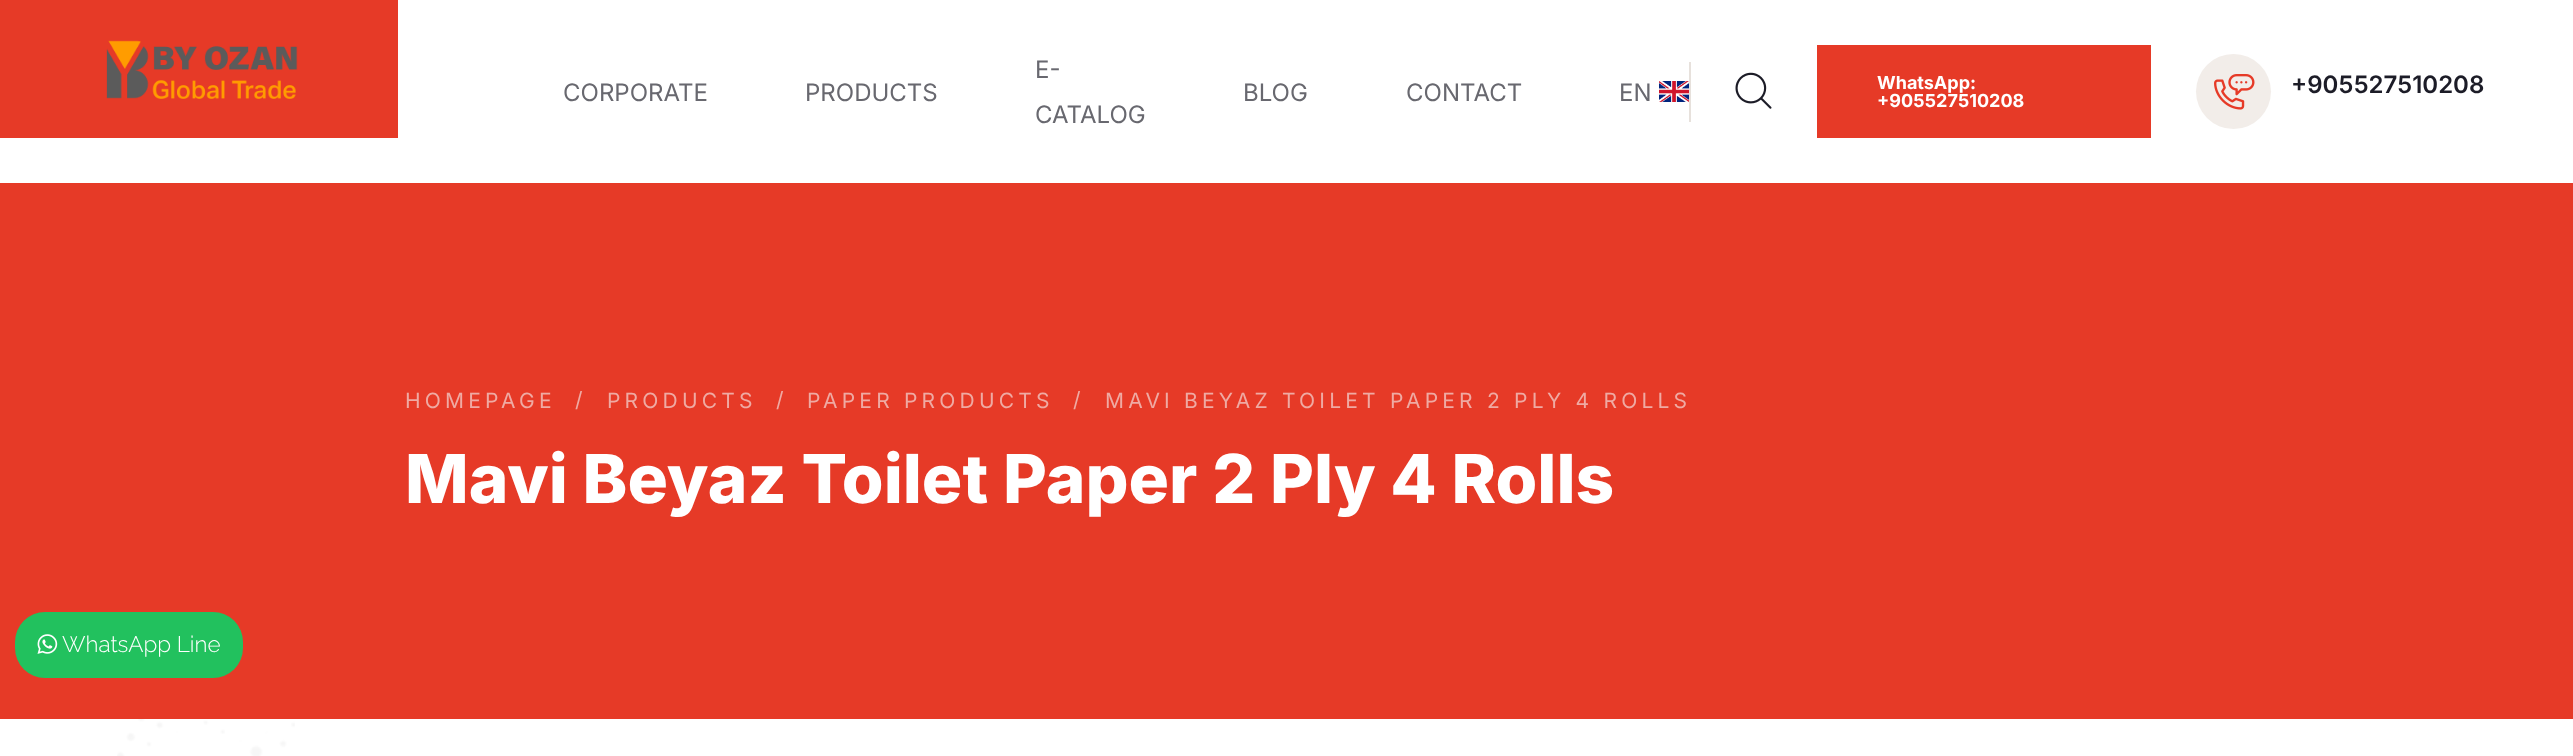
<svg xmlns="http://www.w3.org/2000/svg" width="2573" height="756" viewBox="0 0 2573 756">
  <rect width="100%" height="100%" fill="#fff"/>
  <path d="M0 0h398v138H0z" fill="#e63a27"/>
  <image x="106" y="40" width="192" height="59" href="img/1.png"/>
  <image x="1659" y="81" width="30" height="21" href="img/2.png"/>
  <path d="M1689 62h2v60H1689z" fill="#e7e1dc"/>
  <image x="1735" y="72" width="37" height="37" href="img/3.png"/>
  <path d="M1817 45h334v93H1817z" fill="#e63a27"/>
  <circle cx="2233.5" cy="91.5" r="37.5" fill="#f2ede9"/>
  <image x="2214" y="74" width="41" height="36" href="img/4.png"/>
  <path d="M0 183h2573v536H0z" fill="#e63a27"/>
  <image x="117" y="719" width="178" height="37" href="img/5.png"/>
  <rect x="15" y="612" width="228" height="66" rx="30" fill="#22c15e"/>
  <image x="37" y="634" width="21" height="20" href="img/6.png"/>
  <g font-family="Inter" font-size="24" fill="#68686f">
    <text x="563" y="101">CORPORATE</text>
    <text x="805" y="101">PRODUCTS</text>
    <text x="1035" y="78">E-</text>
    <text x="1035" y="123">CATALOG</text>
    <text x="1243" y="101">BLOG</text>
    <text x="1406" y="101">CONTACT</text>
    <text x="1619" y="101">EN</text>
  </g>
  <g font-family="Inter" font-size="18" font-weight="bold" fill="#fff">
    <text x="1877" y="89">WhatsApp:</text>
    <text x="1877" y="107">+905527510208</text>
  </g>
  <text x="2291" y="93" font-family="Inter" font-size="24" font-weight="600" fill="#1c1c27">+905527510208</text>
  <g font-family="Inter" font-size="21" letter-spacing="4.2" fill="#efaaa3">
    <text x="405" y="408">HOMEPAGE</text>
    <text x="575" y="407">/</text>
    <text x="607" y="408">PRODUCTS</text>
    <text x="776" y="407">/</text>
    <text x="807" y="408">PAPER PRODUCTS</text>
    <text x="1073" y="407">/</text>
    <text x="1105" y="408">MAVI BEYAZ TOILET PAPER 2 PLY 4 ROLLS</text>
  </g>
  <text x="405" y="503" font-family="Inter" font-size="67.5" font-weight="800" fill="#fff">Mavi Beyaz Toilet Paper 2 Ply 4 Rolls</text>
  <text x="62" y="652" font-family="Raleway" font-size="22.5" font-weight="300" fill="#fff">WhatsApp Line</text>
</svg>
